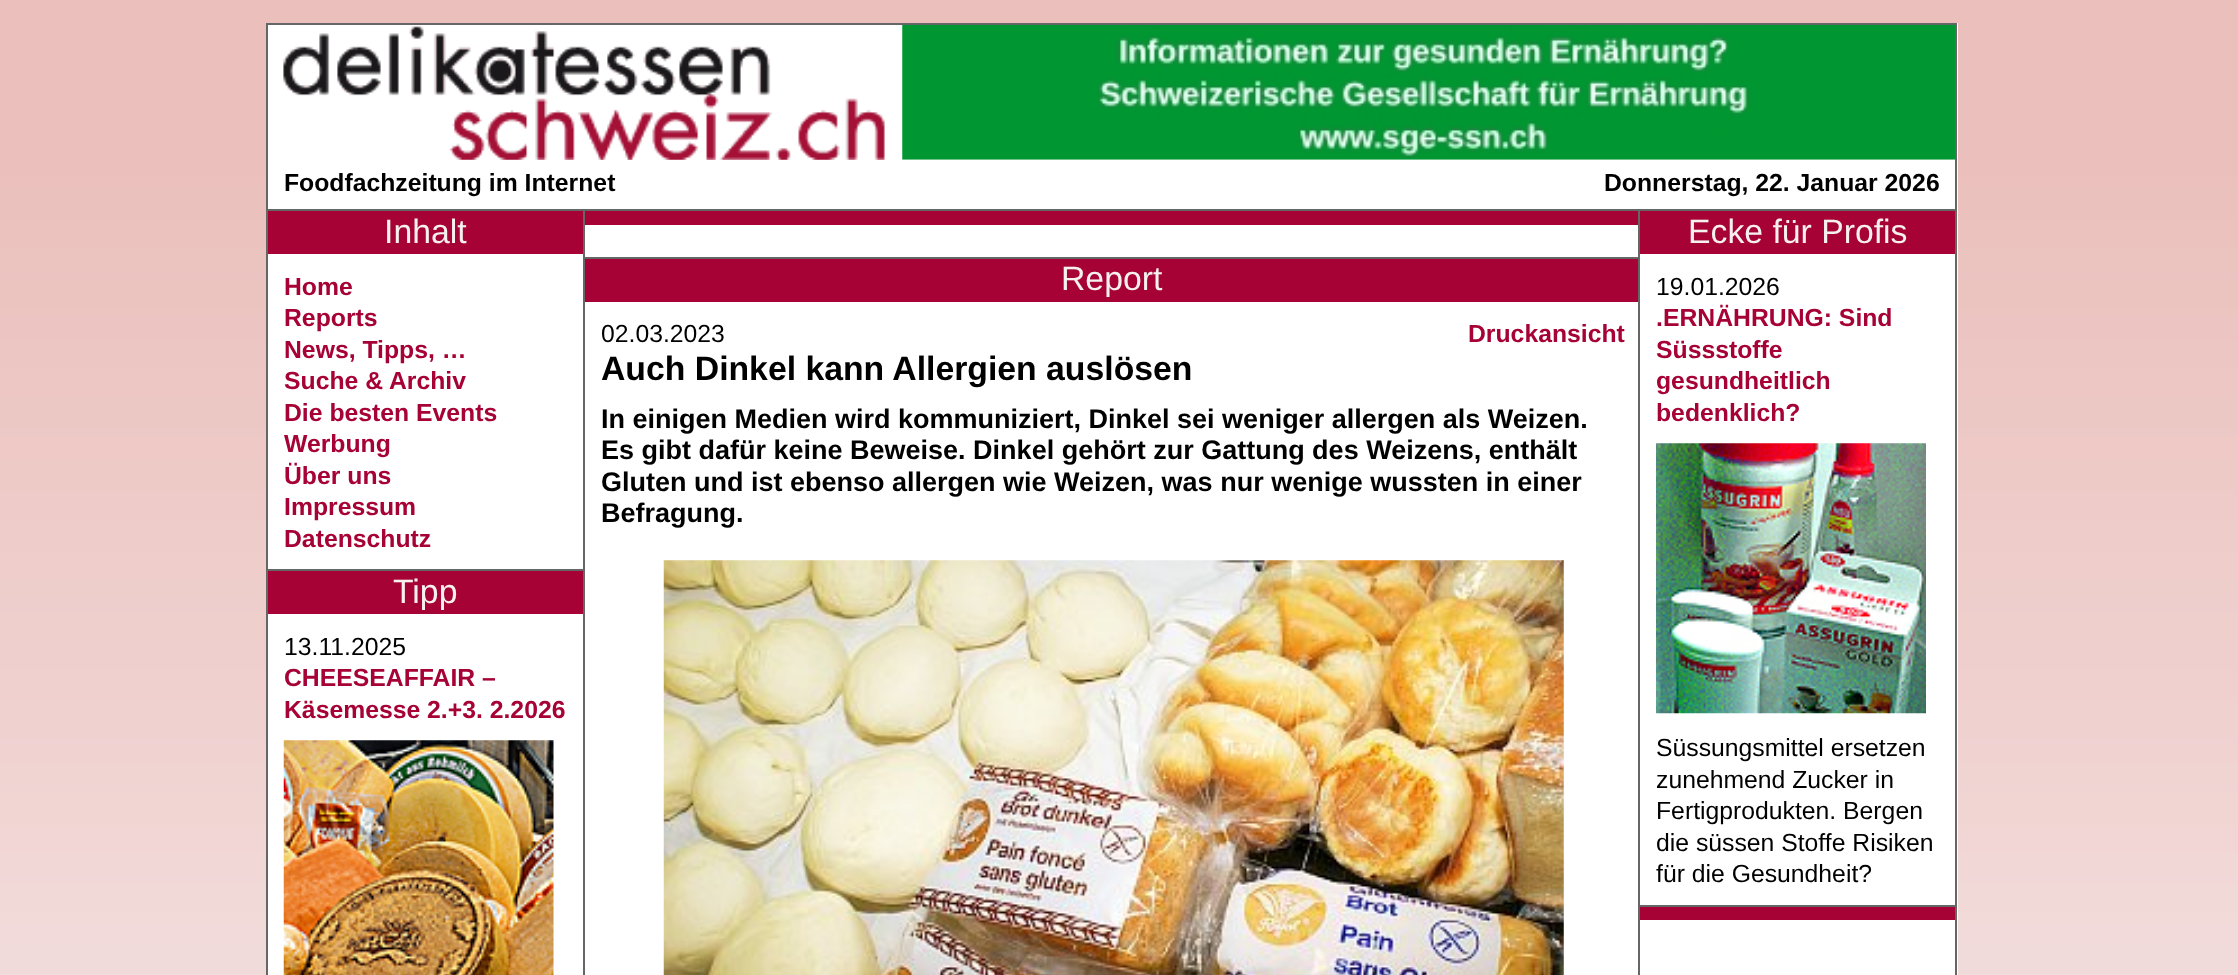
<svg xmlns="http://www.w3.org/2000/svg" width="2238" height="975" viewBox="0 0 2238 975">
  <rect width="100%" height="100%" fill="#fff"/>
  <image x="0" y="0" width="2238" height="975" href="img/1.png"/>
  <path d="M268 23h1690v952H268z" fill="#fff"/>
  <path d="M1955 23h2v952H1955z" fill="#666"/>
  <path d="M266 23h2v952H266z" fill="#666"/>
  <path d="M268 23h1687v2H268z" fill="#666"/>
  <image x="283" y="26" width="602" height="134" href="img/2.png"/>
  <image x="902" y="24" width="1054" height="136" href="img/3.png"/>
  <path d="M583 209h2v766H583z" fill="#666"/>
  <path d="M268 211h315v43H268z" fill="#a60235"/>
  <path d="M268 209h315v2H268z" fill="#666"/>
  <path d="M268 571h315v43H268z" fill="#a60235"/>
  <path d="M268 569h315v2H268z" fill="#666"/>
  <image x="283" y="740" width="271" height="235" href="img/4.png"/>
  <path d="M585 211h1053v14H585z" fill="#a60235"/>
  <path d="M585 209h1053v2H585z" fill="#666"/>
  <path d="M585 259h1053v43H585z" fill="#a60235"/>
  <path d="M585 257h1053v2H585z" fill="#666"/>
  <image x="663" y="560" width="901" height="415" href="img/5.png"/>
  <path d="M1638 209h2v766H1638z" fill="#666"/>
  <path d="M1640 211h315v43H1640z" fill="#a60235"/>
  <path d="M1640 209h315v2H1640z" fill="#666"/>
  <image x="1656" y="443" width="270" height="271" href="img/6.png"/>
  <path d="M1640 907h315v13H1640z" fill="#a60235"/>
  <path d="M1640 905h315v2H1640z" fill="#666"/>
  <g font-family="Liberation Sans" font-size="24.75" font-weight="bold" fill="#000">
    <text x="284" y="191">Foodfachzeitung im Internet</text>
    <text x="1604" y="191">Donnerstag, 22. Januar 2026</text>
  </g>
  <text x="384" y="243" font-family="Liberation Sans" font-size="33.75" fill="#f6f0f0">Inhalt</text>
  <g font-family="Liberation Sans" font-size="24.75" font-weight="bold" fill="#a60235">
    <text x="284" y="295">Home</text>
    <text x="284" y="326">Reports</text>
    <text x="284" y="358">News, Tipps, …</text>
    <text x="284" y="389">Suche &amp; Archiv</text>
    <text x="284" y="421">Die besten Events</text>
    <text x="284" y="452">Werbung</text>
    <text x="284" y="484">Über uns</text>
    <text x="284" y="515">Impressum</text>
    <text x="284" y="547">Datenschutz</text>
  </g>
  <text x="393" y="603" font-family="Liberation Sans" font-size="33.75" fill="#f6f0f0">Tipp</text>
  <text x="284" y="655" font-family="Liberation Sans" font-size="24.75" fill="#000">13.11.2025</text>
  <g font-family="Liberation Sans" font-size="24.75" font-weight="bold" fill="#a60235">
    <text x="284" y="686">CHEESEAFFAIR –</text>
    <text x="284" y="718">Käsemesse 2.+3. 2.2026</text>
  </g>
  <text x="1061" y="290" font-family="Liberation Sans" font-size="33.75" fill="#f6f0f0">Report</text>
  <text x="601" y="342" font-family="Liberation Sans" font-size="24.75" fill="#000">02.03.2023</text>
  <text x="1468" y="342" font-family="Liberation Sans" font-size="24.75" font-weight="bold" fill="#a60235">Druckansicht</text>
  <text x="601" y="380" font-family="Liberation Sans" font-size="33.75" font-weight="bold" fill="#000">Auch Dinkel kann Allergien auslösen</text>
  <g font-family="Liberation Sans" font-size="27" font-weight="bold" fill="#000">
    <text x="601" y="428">In einigen Medien wird kommuniziert, Dinkel sei weniger allergen als Weizen.</text>
    <text x="601" y="459">Es gibt dafür keine Beweise. Dinkel gehört zur Gattung des Weizens, enthält</text>
    <text x="601" y="491">Gluten und ist ebenso allergen wie Weizen, was nur wenige wussten in einer</text>
    <text x="601" y="522">Befragung.</text>
  </g>
  <text x="1688" y="243" font-family="Liberation Sans" font-size="33.75" fill="#f6f0f0">Ecke für Profis</text>
  <text x="1656" y="295" font-family="Liberation Sans" font-size="24.75" fill="#000">19.01.2026</text>
  <g font-family="Liberation Sans" font-size="24.75" font-weight="bold" fill="#a60235">
    <text x="1656" y="326">.ERNÄHRUNG: Sind</text>
    <text x="1656" y="358">Süssstoffe</text>
    <text x="1656" y="389">gesundheitlich</text>
    <text x="1656" y="421">bedenklich?</text>
  </g>
  <g font-family="Liberation Sans" font-size="24.75" fill="#000">
    <text x="1656" y="756">Süssungsmittel ersetzen</text>
    <text x="1656" y="788">zunehmend Zucker in</text>
    <text x="1656" y="819">Fertigprodukten. Bergen</text>
    <text x="1656" y="851">die süssen Stoffe Risiken</text>
    <text x="1656" y="882">für die Gesundheit?</text>
  </g>
</svg>
